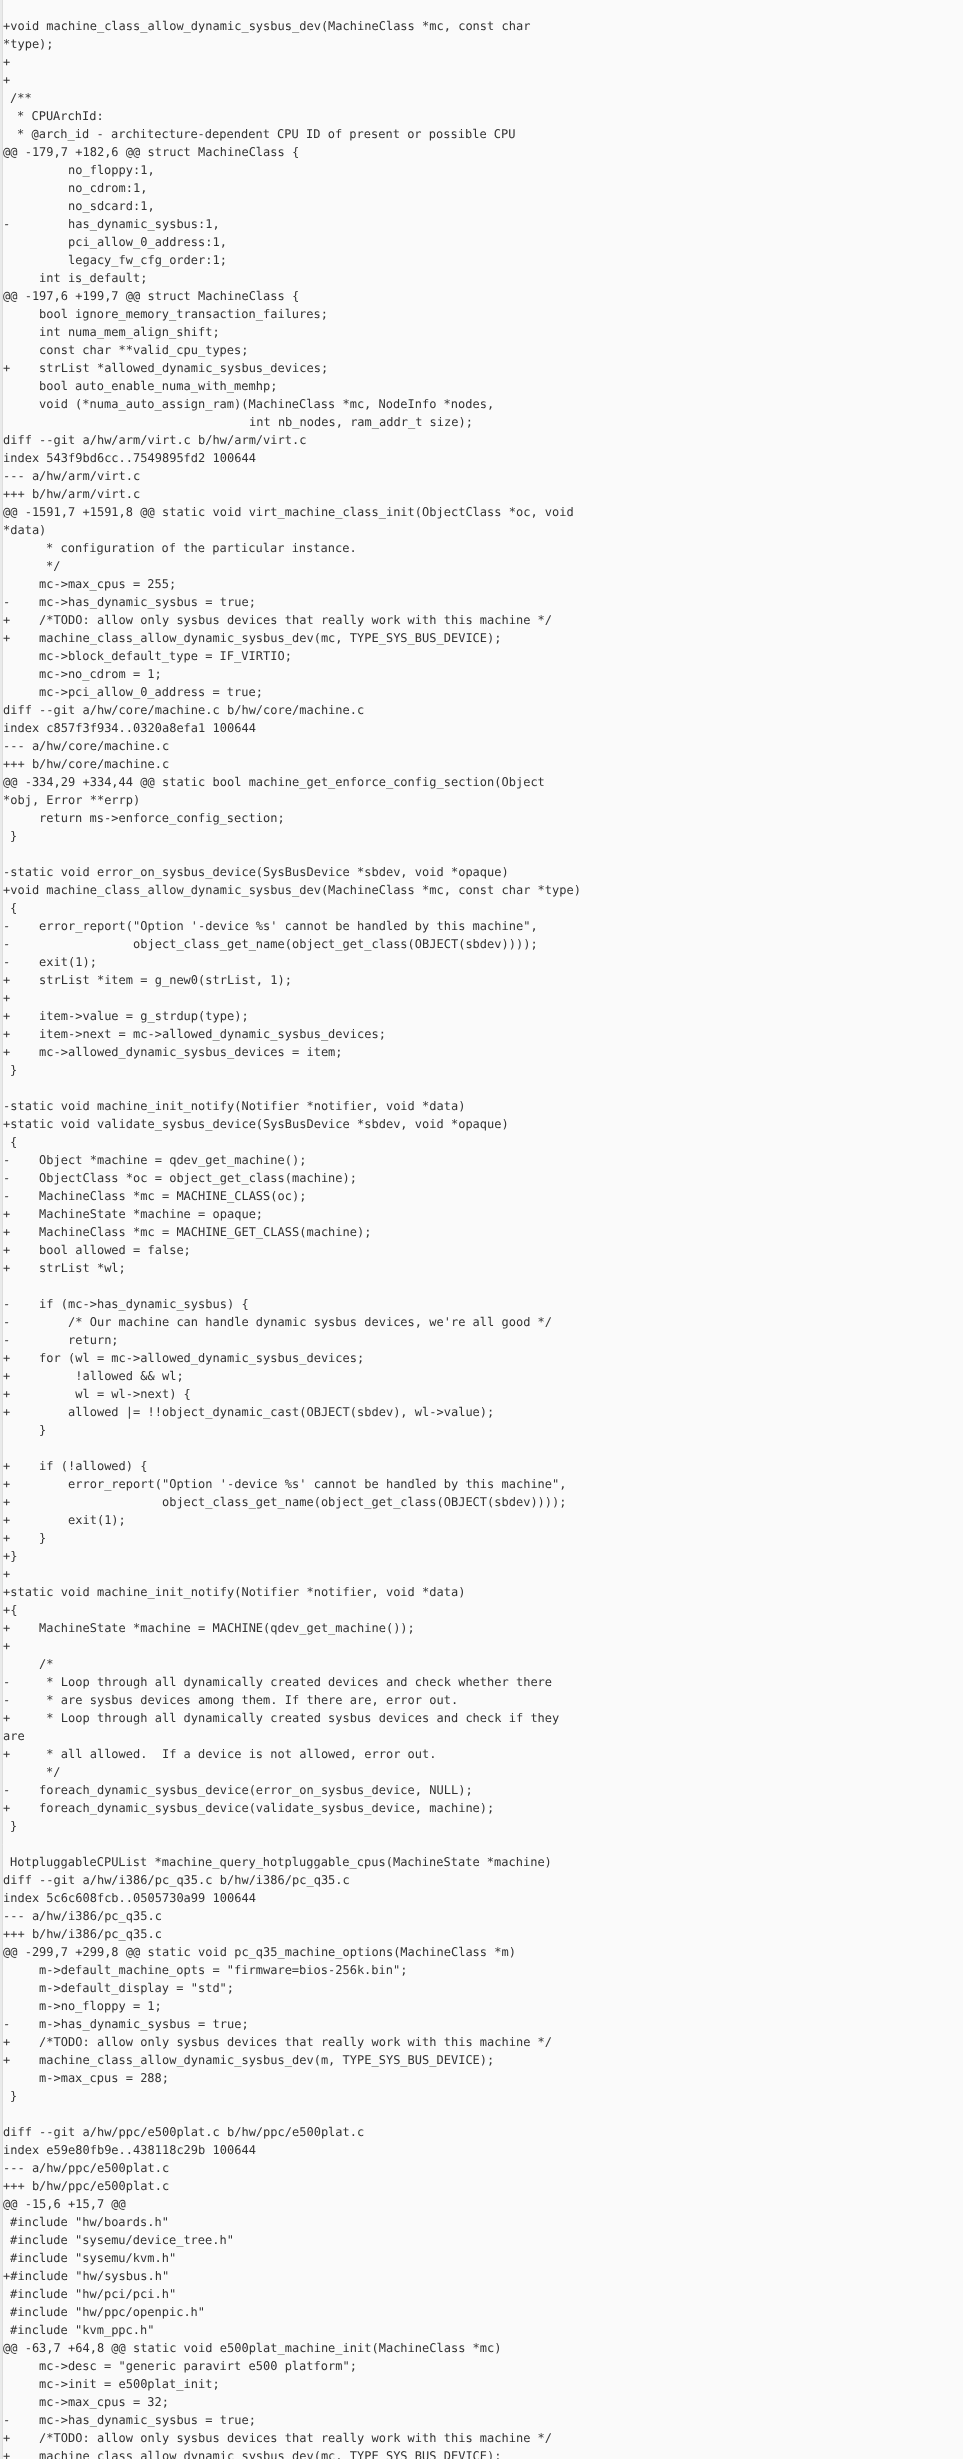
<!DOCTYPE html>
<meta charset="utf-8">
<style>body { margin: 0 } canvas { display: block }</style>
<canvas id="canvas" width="963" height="2459"></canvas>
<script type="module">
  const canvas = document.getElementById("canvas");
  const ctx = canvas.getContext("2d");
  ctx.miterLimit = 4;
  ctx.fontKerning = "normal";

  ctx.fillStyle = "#e9eaea";
  ctx.fillRect(0, 0, 963, 2459);
  ctx.fillStyle = "#fafafa";
  ctx.beginPath();
  ctx.rect(2.5, -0.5, 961, 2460);
  ctx.fill();
  ctx.strokeStyle = "#dddddd";
  ctx.stroke();
  ctx.font = "12px DejaVu Sans Mono";
  ctx.fillStyle = "#333333";
  ctx.fillText("+void machine_class_allow_dynamic_sysbus_dev(MachineClass *mc, const char", 3, 30);
  ctx.fillText("*type);", 3, 48);
  ctx.fillText("+", 3, 66);
  ctx.fillText("+", 3, 84);
  ctx.fillText("/**", 10, 102);
  ctx.fillText("* CPUArchId:", 17, 120);
  ctx.fillText("* @arch_id - architecture-dependent CPU ID of present or possible CPU", 17, 138);
  ctx.fillText("@@ -179,7 +182,6 @@ struct MachineClass {", 3, 156);
  ctx.fillText("no_floppy:1,", 68, 174);
  ctx.fillText("no_cdrom:1,", 68, 192);
  ctx.fillText("no_sdcard:1,", 68, 210);
  ctx.fillText("-        has_dynamic_sysbus:1,", 3, 228);
  ctx.fillText("pci_allow_0_address:1,", 68, 246);
  ctx.fillText("legacy_fw_cfg_order:1;", 68, 264);
  ctx.fillText("int is_default;", 39, 282);
  ctx.fillText("@@ -197,6 +199,7 @@ struct MachineClass {", 3, 300);
  ctx.fillText("bool ignore_memory_transaction_failures;", 39, 318);
  ctx.fillText("int numa_mem_align_shift;", 39, 336);
  ctx.fillText("const char **valid_cpu_types;", 39, 354);
  ctx.fillText("+    strList *allowed_dynamic_sysbus_devices;", 3, 372);
  ctx.fillText("bool auto_enable_numa_with_memhp;", 39, 390);
  ctx.fillText("void (*numa_auto_assign_ram)(MachineClass *mc, NodeInfo *nodes,", 39, 408);
  ctx.fillText("int nb_nodes, ram_addr_t size);", 249, 426);
  ctx.fillText("diff --git a/hw/arm/virt.c b/hw/arm/virt.c", 3, 444);
  ctx.fillText("index 543f9bd6cc..7549895fd2 100644", 3, 462);
  ctx.fillText("--- a/hw/arm/virt.c", 3, 480);
  ctx.fillText("+++ b/hw/arm/virt.c", 3, 498);
  ctx.fillText("@@ -1591,7 +1591,8 @@ static void virt_machine_class_init(ObjectClass *oc, void", 3, 516);
  ctx.fillText("*data)", 3, 534);
  ctx.fillText("* configuration of the particular instance.", 46, 552);
  ctx.fillText("*/", 46, 570);
  ctx.fillText("mc->max_cpus = 255;", 39, 588);
  ctx.fillText("-    mc->has_dynamic_sysbus = true;", 3, 606);
  ctx.fillText("+    /*TODO: allow only sysbus devices that really work with this machine */", 3, 624);
  ctx.fillText("+    machine_class_allow_dynamic_sysbus_dev(mc, TYPE_SYS_BUS_DEVICE);", 3, 642);
  ctx.fillText("mc->block_default_type = IF_VIRTIO;", 39, 660);
  ctx.fillText("mc->no_cdrom = 1;", 39, 678);
  ctx.fillText("mc->pci_allow_0_address = true;", 39, 696);
  ctx.fillText("diff --git a/hw/core/machine.c b/hw/core/machine.c", 3, 714);
  ctx.fillText("index c857f3f934..0320a8efa1 100644", 3, 732);
  ctx.fillText("--- a/hw/core/machine.c", 3, 750);
  ctx.fillText("+++ b/hw/core/machine.c", 3, 768);
  ctx.fillText("@@ -334,29 +334,44 @@ static bool machine_get_enforce_config_section(Object", 3, 786);
  ctx.fillText("*obj, Error **errp)", 3, 804);
  ctx.fillText("return ms->enforce_config_section;", 39, 822);
  ctx.fillText("}", 10, 840);
  ctx.fillText("-static void error_on_sysbus_device(SysBusDevice *sbdev, void *opaque)", 3, 876);
  ctx.fillText("+void machine_class_allow_dynamic_sysbus_dev(MachineClass *mc, const char *type)", 3, 894);
  ctx.fillText("{", 10, 912);
  ctx.fillText("-    error_report(\"Option '-device %s' cannot be handled by this machine\",", 3, 930);
  ctx.fillText("-                 object_class_get_name(object_get_class(OBJECT(sbdev))));", 3, 948);
  ctx.fillText("-    exit(1);", 3, 966);
  ctx.fillText("+    strList *item = g_new0(strList, 1);", 3, 984);
  ctx.fillText("+", 3, 1002);
  ctx.fillText("+    item->value = g_strdup(type);", 3, 1020);
  ctx.fillText("+    item->next = mc->allowed_dynamic_sysbus_devices;", 3, 1038);
  ctx.fillText("+    mc->allowed_dynamic_sysbus_devices = item;", 3, 1056);
  ctx.fillText("}", 10, 1074);
  ctx.fillText("-static void machine_init_notify(Notifier *notifier, void *data)", 3, 1110);
  ctx.fillText("+static void validate_sysbus_device(SysBusDevice *sbdev, void *opaque)", 3, 1128);
  ctx.fillText("{", 10, 1146);
  ctx.fillText("-    Object *machine = qdev_get_machine();", 3, 1164);
  ctx.fillText("-    ObjectClass *oc = object_get_class(machine);", 3, 1182);
  ctx.fillText("-    MachineClass *mc = MACHINE_CLASS(oc);", 3, 1200);
  ctx.fillText("+    MachineState *machine = opaque;", 3, 1218);
  ctx.fillText("+    MachineClass *mc = MACHINE_GET_CLASS(machine);", 3, 1236);
  ctx.fillText("+    bool allowed = false;", 3, 1254);
  ctx.fillText("+    strList *wl;", 3, 1272);
  ctx.fillText("-    if (mc->has_dynamic_sysbus) {", 3, 1308);
  ctx.fillText("-        /* Our machine can handle dynamic sysbus devices, we're all good */", 3, 1326);
  ctx.fillText("-        return;", 3, 1344);
  ctx.fillText("+    for (wl = mc->allowed_dynamic_sysbus_devices;", 3, 1362);
  ctx.fillText("+         !allowed && wl;", 3, 1380);
  ctx.fillText("+         wl = wl->next) {", 3, 1398);
  ctx.fillText("+        allowed |= !!object_dynamic_cast(OBJECT(sbdev), wl->value);", 3, 1416);
  ctx.fillText("}", 39, 1434);
  ctx.fillText("+    if (!allowed) {", 3, 1470);
  ctx.fillText("+        error_report(\"Option '-device %s' cannot be handled by this machine\",", 3, 1488);
  ctx.fillText("+                     object_class_get_name(object_get_class(OBJECT(sbdev))));", 3, 1506);
  ctx.fillText("+        exit(1);", 3, 1524);
  ctx.fillText("+    }", 3, 1542);
  ctx.fillText("+}", 3, 1560);
  ctx.fillText("+", 3, 1578);
  ctx.fillText("+static void machine_init_notify(Notifier *notifier, void *data)", 3, 1596);
  ctx.fillText("+{", 3, 1614);
  ctx.fillText("+    MachineState *machine = MACHINE(qdev_get_machine());", 3, 1632);
  ctx.fillText("+", 3, 1650);
  ctx.fillText("/*", 39, 1668);
  ctx.fillText("-     * Loop through all dynamically created devices and check whether there", 3, 1686);
  ctx.fillText("-     * are sysbus devices among them. If there are, error out.", 3, 1704);
  ctx.fillText("+     * Loop through all dynamically created sysbus devices and check if they", 3, 1722);
  ctx.fillText("are", 3, 1740);
  ctx.fillText("+     * all allowed.  If a device is not allowed, error out.", 3, 1758);
  ctx.fillText("*/", 46, 1776);
  ctx.fillText("-    foreach_dynamic_sysbus_device(error_on_sysbus_device, NULL);", 3, 1794);
  ctx.fillText("+    foreach_dynamic_sysbus_device(validate_sysbus_device, machine);", 3, 1812);
  ctx.fillText("}", 10, 1830);
  ctx.fillText("HotpluggableCPUList *machine_query_hotpluggable_cpus(MachineState *machine)", 10, 1866);
  ctx.fillText("diff --git a/hw/i386/pc_q35.c b/hw/i386/pc_q35.c", 3, 1884);
  ctx.fillText("index 5c6c608fcb..0505730a99 100644", 3, 1902);
  ctx.fillText("--- a/hw/i386/pc_q35.c", 3, 1920);
  ctx.fillText("+++ b/hw/i386/pc_q35.c", 3, 1938);
  ctx.fillText("@@ -299,7 +299,8 @@ static void pc_q35_machine_options(MachineClass *m)", 3, 1956);
  ctx.fillText("m->default_machine_opts = \"firmware=bios-256k.bin\";", 39, 1974);
  ctx.fillText("m->default_display = \"std\";", 39, 1992);
  ctx.fillText("m->no_floppy = 1;", 39, 2010);
  ctx.fillText("-    m->has_dynamic_sysbus = true;", 3, 2028);
  ctx.fillText("+    /*TODO: allow only sysbus devices that really work with this machine */", 3, 2046);
  ctx.fillText("+    machine_class_allow_dynamic_sysbus_dev(m, TYPE_SYS_BUS_DEVICE);", 3, 2064);
  ctx.fillText("m->max_cpus = 288;", 39, 2082);
  ctx.fillText("}", 10, 2100);
  ctx.fillText("diff --git a/hw/ppc/e500plat.c b/hw/ppc/e500plat.c", 3, 2136);
  ctx.fillText("index e59e80fb9e..438118c29b 100644", 3, 2154);
  ctx.fillText("--- a/hw/ppc/e500plat.c", 3, 2172);
  ctx.fillText("+++ b/hw/ppc/e500plat.c", 3, 2190);
  ctx.fillText("@@ -15,6 +15,7 @@", 3, 2208);
  ctx.fillText("#include \"hw/boards.h\"", 10, 2226);
  ctx.fillText("#include \"sysemu/device_tree.h\"", 10, 2244);
  ctx.fillText("#include \"sysemu/kvm.h\"", 10, 2262);
  ctx.fillText("+#include \"hw/sysbus.h\"", 3, 2280);
  ctx.fillText("#include \"hw/pci/pci.h\"", 10, 2298);
  ctx.fillText("#include \"hw/ppc/openpic.h\"", 10, 2316);
  ctx.fillText("#include \"kvm_ppc.h\"", 10, 2334);
  ctx.fillText("@@ -63,7 +64,8 @@ static void e500plat_machine_init(MachineClass *mc)", 3, 2352);
  ctx.fillText("mc->desc = \"generic paravirt e500 platform\";", 39, 2370);
  ctx.fillText("mc->init = e500plat_init;", 39, 2388);
  ctx.fillText("mc->max_cpus = 32;", 39, 2406);
  ctx.fillText("-    mc->has_dynamic_sysbus = true;", 3, 2424);
  ctx.fillText("+    /*TODO: allow only sysbus devices that really work with this machine */", 3, 2442);
  ctx.fillText("+    machine_class_allow_dynamic_sysbus_dev(mc, TYPE_SYS_BUS_DEVICE);", 3, 2460);
</script>
